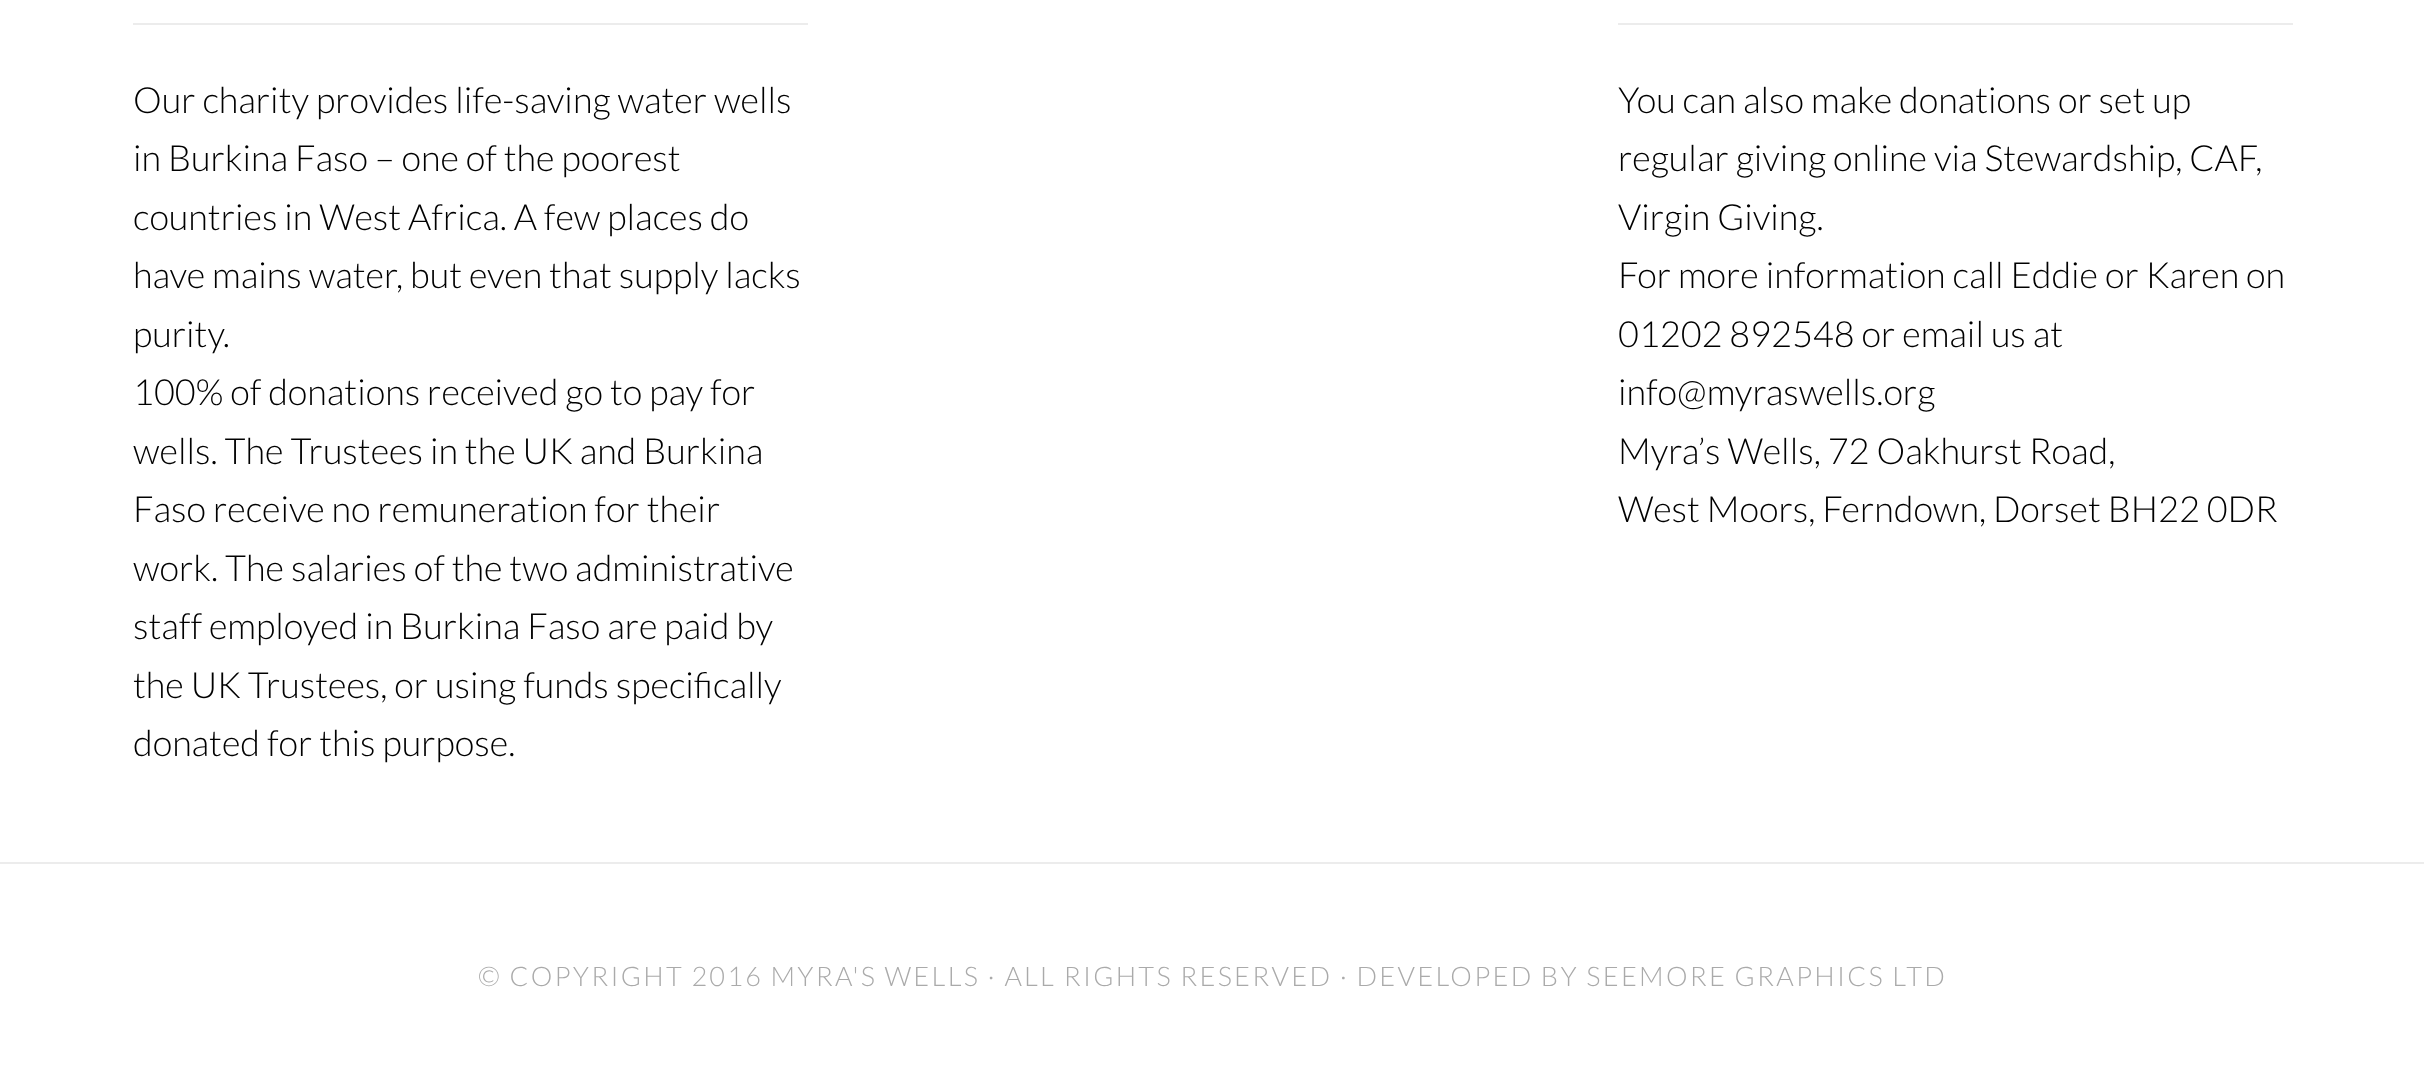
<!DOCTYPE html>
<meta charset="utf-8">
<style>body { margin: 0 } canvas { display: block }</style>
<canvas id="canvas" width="2424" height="1088"></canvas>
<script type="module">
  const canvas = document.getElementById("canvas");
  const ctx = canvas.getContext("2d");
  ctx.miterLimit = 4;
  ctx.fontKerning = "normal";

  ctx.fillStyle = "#ffffff";
  ctx.fillRect(0, 0, 2424, 1088);
  ctx.fillStyle = "#ececec";
  ctx.fillRect(133, 23, 675, 2);
  ctx.font = "300 36px Lato";
  ctx.fillStyle = "#000000";
  ctx.fillText("Our charity provides life-saving water wells", 133, 113);
  ctx.fillText("in Burkina Faso – one of the poorest", 133, 171);
  ctx.fillText("countries in West Africa. A few places do", 133, 230);
  ctx.fillText("have mains water, but even that supply lacks", 133, 288);
  ctx.fillText("purity.", 133, 347);
  ctx.fillText("100% of donations received go to pay for", 133, 405);
  ctx.fillText("wells. The Trustees in the UK and Burkina", 133, 464);
  ctx.fillText("Faso receive no remuneration for their", 133, 522);
  ctx.fillText("work. The salaries of the two administrative", 133, 581);
  ctx.fillText("staff employed in Burkina Faso are paid by", 133, 639);
  ctx.fillText("the UK Trustees, or using funds specifically", 133, 698);
  ctx.fillText("donated for this purpose.", 133, 756);
  ctx.fillStyle = "#ececec";
  ctx.fillRect(1618, 23, 675, 2);
  ctx.fillStyle = "#000000";
  ctx.fillText("You can also make donations or set up", 1618, 113);
  ctx.fillText("regular giving online via Stewardship, CAF,", 1618, 171);
  ctx.fillText("Virgin Giving.", 1618, 230);
  ctx.fillText("For more information call Eddie or Karen on", 1618, 288);
  ctx.fillText("01202 892548 or email us at", 1618, 347);
  ctx.fillText("info@myraswells.org", 1618, 405);
  ctx.fillText("Myra’s Wells, 72 Oakhurst Road,", 1618, 464);
  ctx.fillText("West Moors, Ferndown, Dorset BH22 0DR", 1618, 522);
  ctx.fillStyle = "#ececec";
  ctx.fillRect(0, 862, 2424, 2);
  ctx.letterSpacing = "2.25px";
  ctx.font = "300 27px Lato";
  ctx.fillStyle = "#aaaaaa";
  ctx.fillText("© COPYRIGHT 2016 MYRA'S WELLS · ALL RIGHTS RESERVED · DEVELOPED BY SEEMORE GRAPHICS LTD", 478, 986);
</script>
